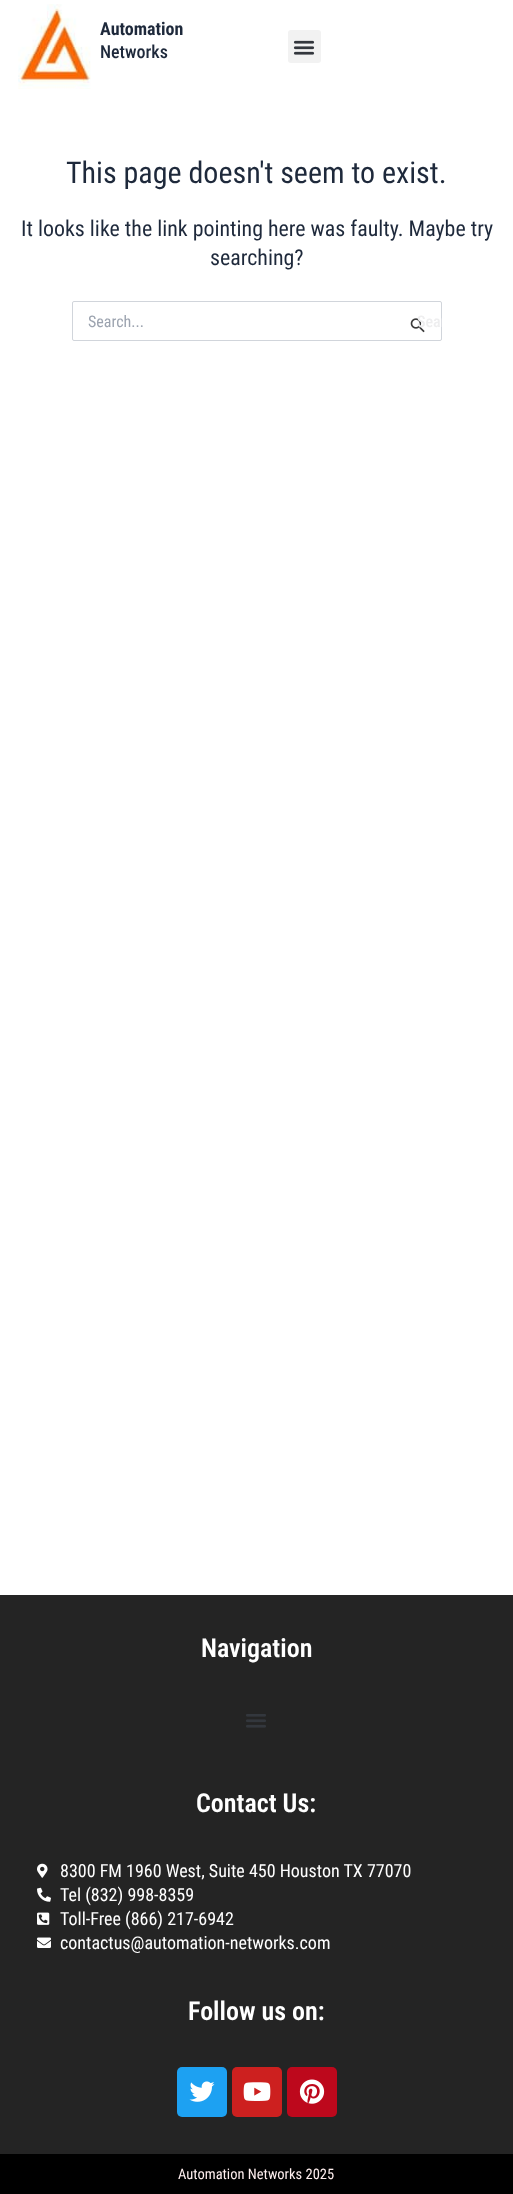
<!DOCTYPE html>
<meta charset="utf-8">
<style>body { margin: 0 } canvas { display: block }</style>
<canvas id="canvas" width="513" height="2194"></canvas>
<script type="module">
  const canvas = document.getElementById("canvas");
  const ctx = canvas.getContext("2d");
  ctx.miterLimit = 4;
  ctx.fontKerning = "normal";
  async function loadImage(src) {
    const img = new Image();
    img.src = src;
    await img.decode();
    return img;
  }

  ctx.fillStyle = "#ffffff";
  ctx.fillRect(0, 0, 513, 2194);
  ctx.drawImage(await loadImage("img1.png"), 18, 4, 73, 85);
  ctx.font = "bold 18px Roboto Condensed";
  ctx.fillStyle = "#1e293b";
  ctx.fillText("Automation", 100, 35);
  ctx.font = "500 18px Roboto Condensed";
  ctx.fillText("Networks", 100, 58);
  ctx.fillStyle = "#f2f2f2";
  ctx.beginPath();
  ctx.roundRect(288, 30, 33, 33, 3);
  ctx.fill();
  ctx.drawImage(await loadImage("img2.png"), 293, 40, 22, 15);
  ctx.font = "30px Roboto Condensed";
  ctx.fillStyle = "#1e293b";
  ctx.fillText("This page doesn't seem to exist.", 66, 183);
  ctx.font = "21.9px Roboto Condensed";
  ctx.fillText("It looks like the link pointing here was faulty. Maybe try", 21, 236);
  ctx.fillText("searching?", 210, 265);
  ctx.beginPath();
  ctx.roundRect(72.5, 301.5, 369, 39, 1.5);
  ctx.strokeStyle = "#d1d5db";
  ctx.stroke();
  ctx.font = "16px Roboto Condensed";
  ctx.fillStyle = "#9ca3af";
  ctx.fillText("Search...", 88, 327);
  ctx.drawImage(await loadImage("img3.png"), 410, 318, 15, 15);
  ctx.save();
  ctx.beginPath();
  ctx.roundRect(397, 301, 45, 42, 2);
  ctx.clip();
  ctx.font = "500 16px Roboto Condensed";
  ctx.fillStyle = "#eeeeef";
  ctx.fillText("Sear", 417, 327);
  ctx.restore();
  ctx.fillStyle = "#242424";
  ctx.fillRect(0, 1595, 513, 559);
  ctx.font = "600 26px Roboto Condensed";
  ctx.fillStyle = "#ffffff";
  ctx.fillText("Navigation", 201, 1657);
  ctx.drawImage(await loadImage("img4.png"), 246, 1714, 20, 14);
  ctx.fillText("Contact Us:", 196, 1812);
  ctx.drawImage(await loadImage("img5.png"), 37, 1863, 11, 15);
  ctx.font = "18px Roboto Condensed";
  ctx.fillText("8300 FM 1960 West, Suite 450 Houston TX 77070", 60, 1877);
  ctx.drawImage(await loadImage("img6.png"), 37, 1887, 14, 15);
  ctx.fillText("Tel (832) 998-8359", 60, 1901);
  ctx.drawImage(await loadImage("img7.png"), 37, 1912, 13, 13);
  ctx.fillText("Toll-Free (866) 217-6942", 60, 1925);
  ctx.drawImage(await loadImage("img8.png"), 37, 1937, 14, 11);
  ctx.fillText("contactus@automation-networks.com", 60, 1949);
  ctx.font = "600 26px Roboto Condensed";
  ctx.fillText("Follow us on:", 188, 2020);
  ctx.fillStyle = "#1da1f2";
  ctx.beginPath();
  ctx.roundRect(177, 2067, 50, 50, 5);
  ctx.fill();
  ctx.drawImage(await loadImage("img9.png"), 189, 2081, 26, 21);
  ctx.fillStyle = "#cd201f";
  ctx.beginPath();
  ctx.roundRect(232, 2067, 50, 50, 5);
  ctx.fill();
  ctx.drawImage(await loadImage("img10.png"), 243, 2082, 28, 19);
  ctx.fillStyle = "#bd081c";
  ctx.beginPath();
  ctx.roundRect(287, 2067, 50, 50, 5);
  ctx.fill();
  ctx.drawImage(await loadImage("img11.png"), 299, 2079, 26, 25);
  ctx.fillStyle = "#000000";
  ctx.fillRect(0, 2154, 513, 40);
  ctx.font = "14.5px Roboto Condensed";
  ctx.fillStyle = "#ffefef";
  ctx.fillText("Automation Networks 2025", 178, 2179);
</script>
